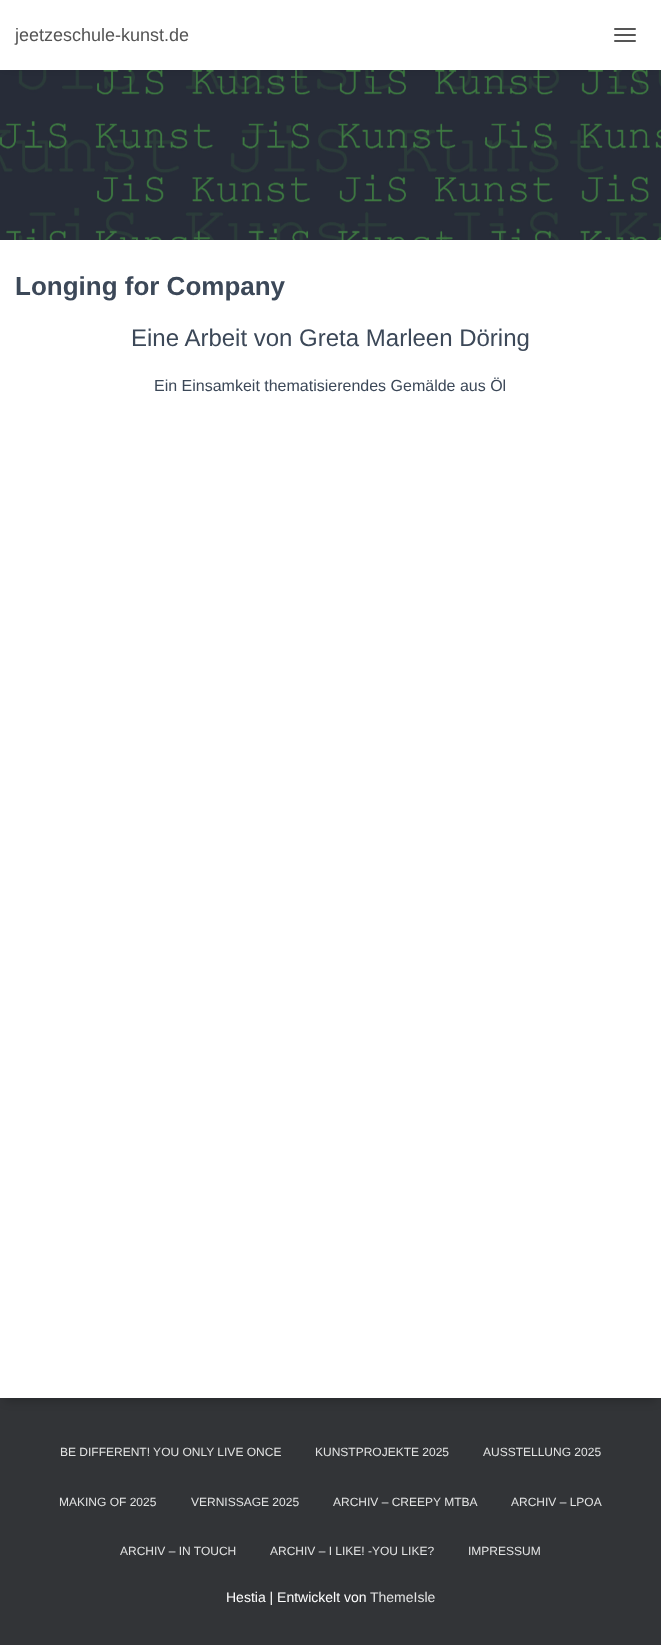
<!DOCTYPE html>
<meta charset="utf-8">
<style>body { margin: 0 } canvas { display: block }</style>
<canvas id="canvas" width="661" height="1645"></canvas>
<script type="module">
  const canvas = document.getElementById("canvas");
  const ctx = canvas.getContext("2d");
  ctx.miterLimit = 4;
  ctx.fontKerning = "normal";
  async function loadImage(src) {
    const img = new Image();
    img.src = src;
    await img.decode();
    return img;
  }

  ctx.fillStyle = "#323437";
  ctx.fillRect(0, 0, 661, 1645);
  ctx.drawImage(await loadImage("img1.png"), 0, 70, 661, 170);
  ctx.fillStyle = "rgba(0, 0, 0, 0.42)";
  ctx.filter = "blur(5px)";
  ctx.beginPath();
  ctx.rect(6, 7, 649, 58);
  ctx.fill();
  ctx.filter = "none";
  ctx.fillStyle = "#ffffff";
  ctx.fillRect(0, 0, 661, 70);
  ctx.font = "18px Liberation Sans";
  ctx.fillStyle = "#555555";
  ctx.fillText("jeetzeschule-kunst.de", 15, 41);
  ctx.beginPath();
  ctx.roundRect(614, 28, 22, 2, 1);
  ctx.fill();
  ctx.beginPath();
  ctx.roundRect(614, 34, 22, 2, 1);
  ctx.fill();
  ctx.beginPath();
  ctx.roundRect(614, 40, 22, 2, 1);
  ctx.fill();
  ctx.fillStyle = "rgba(0, 0, 0, 0.2)";
  ctx.filter = "blur(5px)";
  ctx.beginPath();
  ctx.rect(5, 253, 651, 1148);
  ctx.fill();
  ctx.filter = "none";
  ctx.fillStyle = "#ffffff";
  ctx.fillRect(0, 240, 661, 1158);
  ctx.font = "bold 26px Liberation Sans";
  ctx.fillStyle = "#3c4858";
  ctx.fillText("Longing for Company", 15, 295);
  ctx.font = "24px Liberation Sans";
  ctx.fillText("Eine Arbeit von Greta Marleen Döring", 131, 346);
  ctx.font = "16px Liberation Sans";
  ctx.fillText("Ein Einsamkeit thematisierendes Gemälde aus Öl", 154, 391);
  ctx.font = "12px Liberation Sans";
  ctx.fillStyle = "#e2e3e3";
  ctx.fillText("BE DIFFERENT! YOU ONLY LIVE ONCE", 60, 1456);
  ctx.fillText("KUNSTPROJEKTE 2025", 315, 1456);
  ctx.fillText("AUSSTELLUNG 2025", 483, 1456);
  ctx.fillText("MAKING OF 2025", 59, 1506);
  ctx.fillText("VERNISSAGE 2025", 191, 1506);
  ctx.fillText("ARCHIV – CREEPY MTBA", 333, 1506);
  ctx.fillText("ARCHIV – LPOA", 511, 1506);
  ctx.fillText("ARCHIV – IN TOUCH", 120, 1555);
  ctx.fillText("ARCHIV – I LIKE! -YOU LIKE?", 270, 1555);
  ctx.fillText("IMPRESSUM", 468, 1555);
  ctx.font = "14px Liberation Sans";
  ctx.fillStyle = "#ffffff";
  ctx.fillText("Hestia | Entwickelt von", 226, 1602);
  ctx.fillStyle = "#e2e3e3";
  ctx.fillText("ThemeIsle", 370, 1602);
</script>
